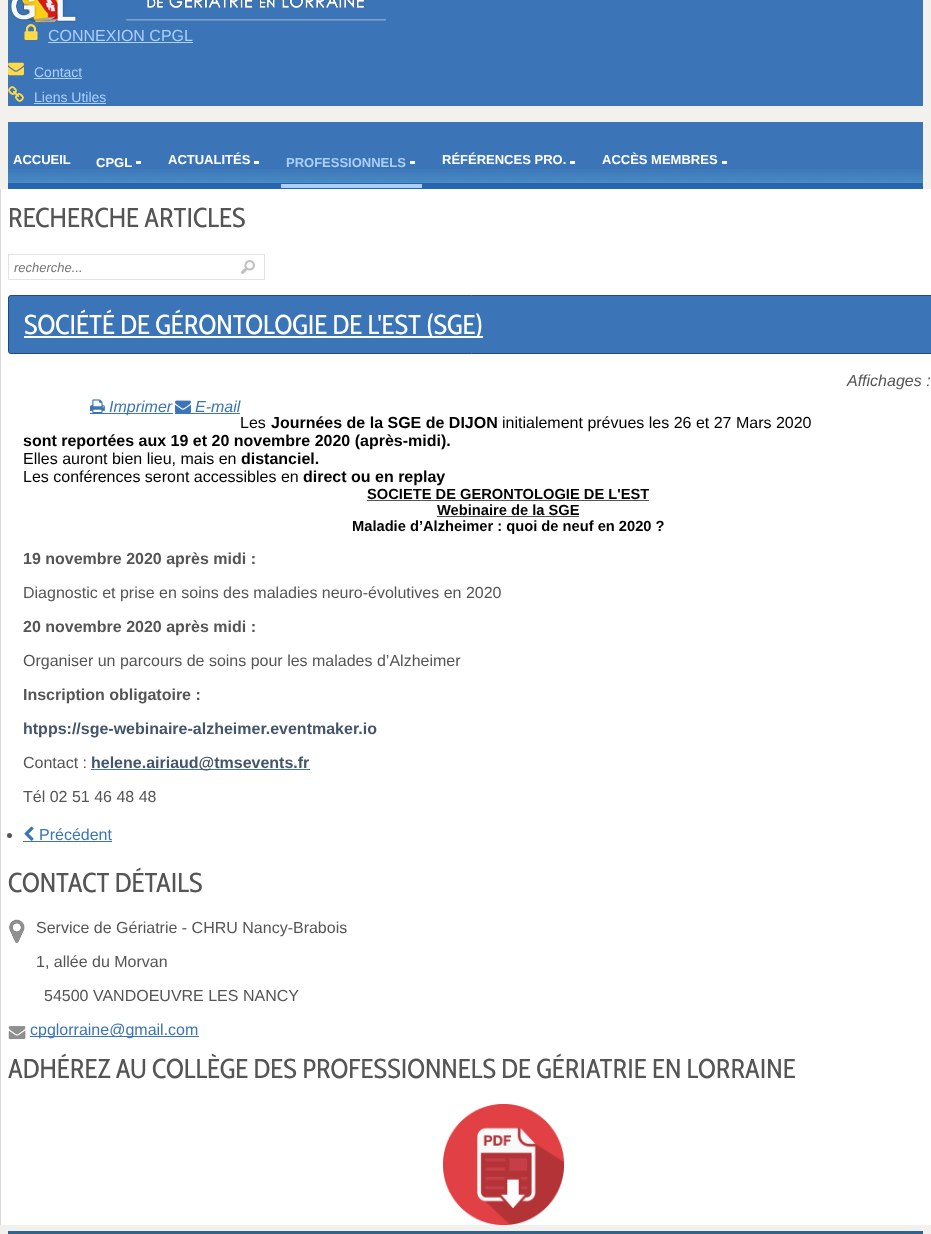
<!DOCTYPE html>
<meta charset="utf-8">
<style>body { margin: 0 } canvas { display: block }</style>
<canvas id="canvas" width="931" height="1234"></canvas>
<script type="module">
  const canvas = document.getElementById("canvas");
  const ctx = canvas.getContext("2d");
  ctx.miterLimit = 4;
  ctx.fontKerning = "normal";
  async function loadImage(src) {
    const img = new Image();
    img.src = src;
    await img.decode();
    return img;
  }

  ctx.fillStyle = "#f3f1ee";
  ctx.fillRect(0, 0, 931, 1234);
  ctx.fillStyle = "#3b74b7";
  ctx.fillRect(8, 0, 915, 106);
  ctx.drawImage(await loadImage("img1.png"), 10, 0, 376, 23);
  ctx.drawImage(await loadImage("img2.png"), 24, 24, 14, 16);
  ctx.font = "16px Liberation Sans";
  ctx.fillStyle = "#abd0fc";
  ctx.fillText("CONNEXION CPGL", 48, 41);
  ctx.fillRect(48, 42, 145, 1);
  ctx.drawImage(await loadImage("img3.png"), 8, 62, 16, 14);
  ctx.font = "14px Liberation Sans";
  ctx.fillText("Contact", 34, 77);
  ctx.fillRect(34, 78, 48, 1);
  ctx.drawImage(await loadImage("img4.png"), 8, 86, 16, 16);
  ctx.fillText("Liens Utiles", 34, 102);
  ctx.fillRect(34, 103, 72, 1);
  ctx.fillStyle = "#3b74b7";
  ctx.fillRect(8, 122, 915, 67);
  ctx.drawImage(await loadImage("img5.png"), 8, 169, 915, 20);
  ctx.font = "bold 13px Liberation Sans";
  ctx.fillStyle = "#ffffff";
  ctx.fillText("ACCUEIL", 13, 164);
  ctx.fillText("CPGL", 96, 167);
  ctx.fillRect(136, 161, 5, 3);
  ctx.fillText("ACTUALITÉS", 168, 164);
  ctx.fillRect(254, 161, 5, 3);
  ctx.fillStyle = "#abd0fc";
  ctx.fillRect(281, 184, 141, 4);
  ctx.fillText("PROFESSIONNELS", 286, 167);
  ctx.fillStyle = "#ffffff";
  ctx.fillRect(410, 161, 5, 3);
  ctx.fillText("RÉFÉRENCES PRO.", 442, 164);
  ctx.fillRect(570, 161, 5, 3);
  ctx.fillText("ACCÈS MEMBRES", 602, 164);
  ctx.fillRect(722, 161, 5, 3);
  ctx.fillRect(1, 189, 930, 1036);
  ctx.fillStyle = "#dbd9d6";
  ctx.fillRect(0, 189, 1, 1036);
  ctx.font = "27.2px Cabin Condensed";
  ctx.fillStyle = "#555555";
  ctx.fillText("RECHERCHE ARTICLES", 8, 227);
  ctx.drawImage(await loadImage("img6.png"), 241, 260, 14, 14);
  ctx.strokeStyle = "#e3e3e3";
  ctx.strokeRect(8.5, 254.5, 256, 25);
  ctx.font = "italic 13px Liberation Sans";
  ctx.fillStyle = "#757575";
  ctx.fillText("recherche...", 14, 272);
  ctx.fillStyle = "#3b74b7";
  ctx.beginPath();
  ctx.roundRect(8.5, 295.5, 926, 58, 2.5);
  ctx.fill();
  ctx.strokeStyle = "#1a4d86";
  ctx.stroke();
  ctx.fillStyle = "#ffffff";
  ctx.fillRect(24, 336, 459, 2);
  ctx.font = "27.2px Cabin Condensed";
  ctx.fillText("SOCIÉTÉ DE GÉRONTOLOGIE DE L'EST (SGE)", 24, 334);
  ctx.font = "italic 16px Liberation Sans";
  ctx.fillStyle = "#555555";
  ctx.fillText("Affichages :", 847, 386);
  ctx.fillStyle = "#3b74b7";
  ctx.fillRect(90, 413, 83, 1);
  ctx.drawImage(await loadImage("img7.png"), 90, 399, 15, 14);
  ctx.fillText("Imprimer", 109, 412);
  ctx.fillRect(175, 413, 65, 1);
  ctx.drawImage(await loadImage("img8.png"), 175, 400, 16, 13);
  ctx.fillText("E-mail", 195, 412);
  ctx.font = "16px Liberation Sans";
  ctx.fillStyle = "#000000";
  ctx.fillText("Les", 240, 428);
  ctx.font = "bold 16px Liberation Sans";
  ctx.fillText("Journées de la SGE de DIJON", 271, 428);
  ctx.font = "16px Liberation Sans";
  ctx.fillText("initialement prévues les 26 et 27 Mars 2020", 502, 428);
  ctx.font = "bold 16px Liberation Sans";
  ctx.fillText("sont reportées aux 19 et 20 novembre 2020 (après-midi).", 23, 446);
  ctx.font = "16px Liberation Sans";
  ctx.fillText("Elles auront bien lieu, mais en", 23, 464);
  ctx.font = "bold 16px Liberation Sans";
  ctx.fillText("distanciel.", 241, 464);
  ctx.font = "16px Liberation Sans";
  ctx.fillText("Les conférences seront accessibles en", 23, 482);
  ctx.font = "bold 16px Liberation Sans";
  ctx.fillText("direct ou en replay", 303, 482);
  ctx.font = "bold 14.7px Liberation Sans";
  ctx.fillText("SOCIETE DE GERONTOLOGIE DE L'EST", 367, 499);
  ctx.fillStyle = "#555555";
  ctx.fillRect(367, 500, 282, 1);
  ctx.fillStyle = "#000000";
  ctx.fillText("Webinaire de la SGE", 437, 515);
  ctx.fillStyle = "#555555";
  ctx.fillRect(437, 516, 142, 1);
  ctx.fillStyle = "#000000";
  ctx.fillText("Maladie d’Alzheimer : quoi de neuf en 2020 ?", 352, 531);
  ctx.font = "bold 16px Liberation Sans";
  ctx.fillStyle = "#555555";
  ctx.fillText("19 novembre 2020 après midi :", 23, 564);
  ctx.font = "16px Liberation Sans";
  ctx.fillText("Diagnostic et prise en soins des maladies neuro-évolutives en 2020", 23, 598);
  ctx.font = "bold 16px Liberation Sans";
  ctx.fillText("20 novembre 2020 après midi :", 23, 632);
  ctx.font = "16px Liberation Sans";
  ctx.fillText("Organiser un parcours de soins pour les malades d’Alzheimer", 23, 666);
  ctx.font = "bold 16px Liberation Sans";
  ctx.fillText("Inscription obligatoire :", 23, 700);
  ctx.fillStyle = "#44546a";
  ctx.fillText("htpps://sge-webinaire-alzheimer.eventmaker.io", 23, 734);
  ctx.font = "16px Liberation Sans";
  ctx.fillStyle = "#555555";
  ctx.fillText("Contact :", 23, 768);
  ctx.fillStyle = "#3b74b7";
  ctx.fillRect(91, 769, 219, 1);
  ctx.font = "bold 16px Liberation Sans";
  ctx.fillStyle = "#44546a";
  ctx.fillText("helene.airiaud@tmsevents.fr", 91, 768);
  ctx.font = "16px Liberation Sans";
  ctx.fillStyle = "#555555";
  ctx.fillText("Tél 02 51 46 48 48", 23, 802);
  ctx.beginPath();
  ctx.arc(9.5, 835.5, 2.5, 0, Math.PI * 2);
  ctx.fill();
  ctx.fillStyle = "#3b74b7";
  ctx.fillRect(23, 841, 89, 1);
  ctx.drawImage(await loadImage("img9.png"), 24, 826, 10, 15);
  ctx.fillText("Précédent", 39, 840);
  ctx.font = "27.2px Cabin Condensed";
  ctx.fillStyle = "#555555";
  ctx.fillText("CONTACT DÉTAILS", 8, 892);
  ctx.drawImage(await loadImage("img10.png"), 9, 919, 16, 24);
  ctx.font = "16px Liberation Sans";
  ctx.fillText("Service de Gériatrie - CHRU Nancy-Brabois", 36, 933);
  ctx.fillText("1, allée du Morvan", 36, 967);
  ctx.fillText("54500 VANDOEUVRE LES NANCY", 44, 1001);
  ctx.drawImage(await loadImage("img11.png"), 8, 1026, 18, 14);
  ctx.fillStyle = "#3b74b7";
  ctx.fillRect(30, 1036, 169, 1);
  ctx.fillText("cpglorraine@gmail.com", 30, 1035);
  ctx.font = "27.2px Cabin Condensed";
  ctx.fillStyle = "#555555";
  ctx.fillText("ADHÉREZ AU COLLÈGE DES PROFESSIONNELS DE GÉRIATRIE EN LORRAINE", 8, 1078);
  ctx.drawImage(await loadImage("img12.png"), 443, 1104, 121, 121);
  ctx.fillStyle = "#33638b";
  ctx.fillRect(8, 1231, 915, 3);
</script>
